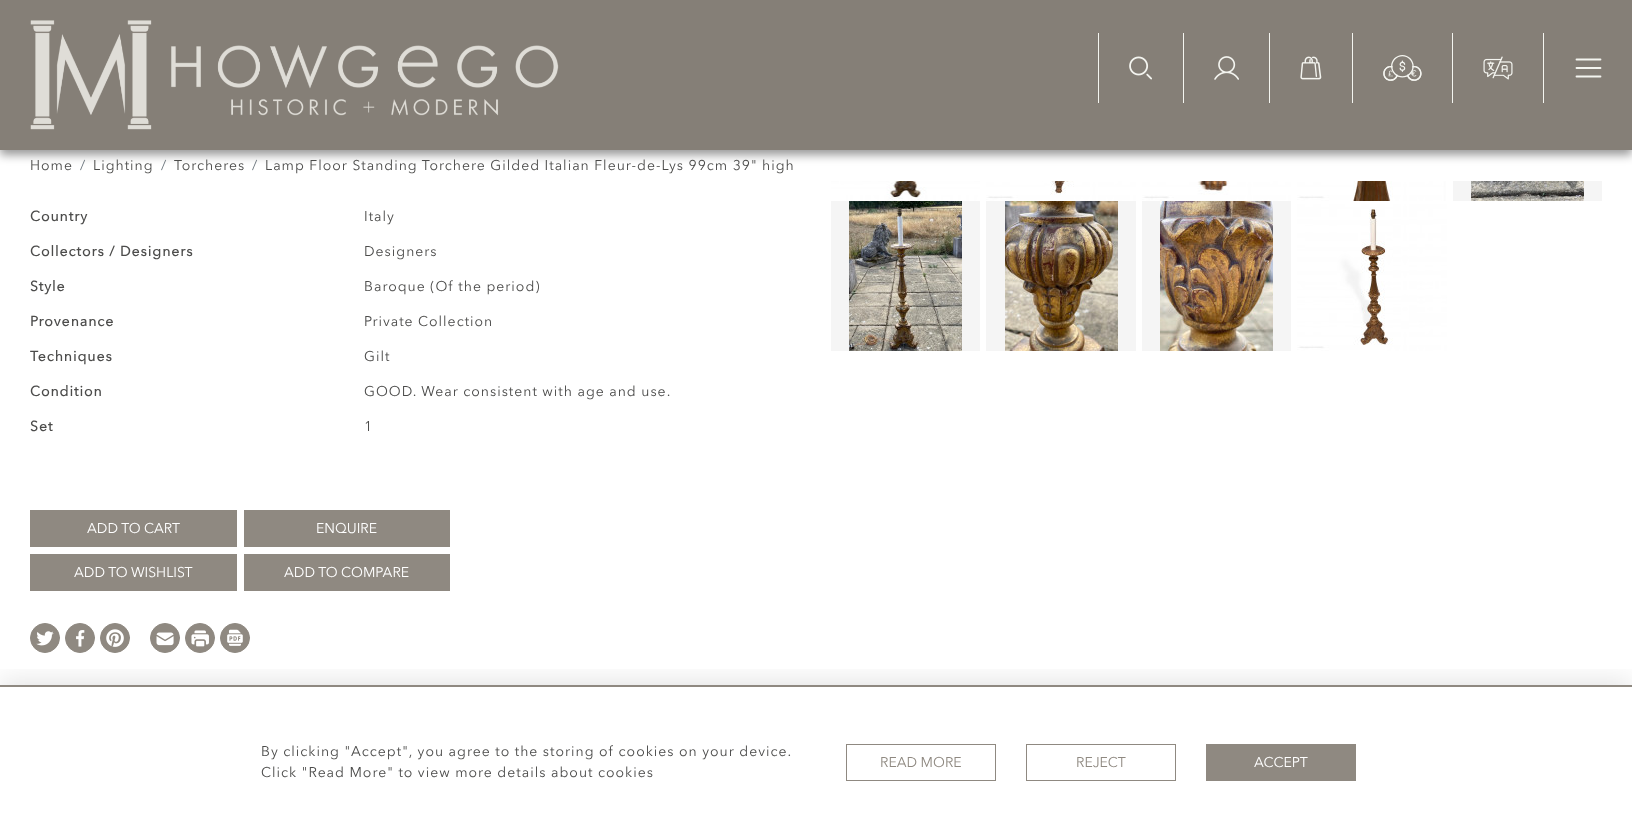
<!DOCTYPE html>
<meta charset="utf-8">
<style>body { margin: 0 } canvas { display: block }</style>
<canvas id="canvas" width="1632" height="837"></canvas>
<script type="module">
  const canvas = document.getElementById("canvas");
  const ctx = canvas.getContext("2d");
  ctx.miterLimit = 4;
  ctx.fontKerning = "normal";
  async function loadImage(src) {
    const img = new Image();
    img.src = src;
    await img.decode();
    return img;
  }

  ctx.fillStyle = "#ffffff";
  ctx.fillRect(0, 0, 1632, 837);
  ctx.fillStyle = "rgba(0, 0, 0, 0.4)";
  ctx.filter = "blur(5px)";
  ctx.beginPath();
  ctx.rect(0, 5, 1632, 150);
  ctx.fill();
  ctx.filter = "none";
  ctx.fillStyle = "#857f77";
  ctx.fillRect(0, 0, 1632, 150);
  ctx.drawImage(await loadImage("img1.png"), 30, 20, 529, 110);
  ctx.fillStyle = "#f4f5f0";
  ctx.fillRect(1098, 33, 1, 70);
  ctx.drawImage(await loadImage("img2.png"), 1129, 56, 23, 24);
  ctx.fillRect(1183, 33, 1, 70);
  ctx.drawImage(await loadImage("img3.png"), 1214, 56, 25, 24);
  ctx.fillRect(1269, 33, 1, 70);
  ctx.drawImage(await loadImage("img4.png"), 1300, 56, 22, 24);
  ctx.fillRect(1352, 33, 1, 70);
  ctx.drawImage(await loadImage("img5.png"), 1383, 55, 39, 26);
  ctx.fillRect(1452, 33, 1, 70);
  ctx.drawImage(await loadImage("img6.png"), 1483, 56, 30, 24);
  ctx.fillRect(1543, 33, 1, 70);
  ctx.beginPath();
  ctx.moveTo(1576.5, 59.5);
  ctx.lineTo(1600.5, 59.5);
  ctx.moveTo(1576.5, 68);
  ctx.lineTo(1600.5, 68);
  ctx.moveTo(1576.5, 76.5);
  ctx.lineTo(1600.5, 76.5);
  ctx.strokeStyle = "#f4f5f0";
  ctx.lineWidth = 1.8;
  ctx.lineCap = "round";
  ctx.stroke();
  ctx.letterSpacing = "1px";
  ctx.font = "14px Avenir Next";
  ctx.fillStyle = "#4c4c4b";
  ctx.fillText("Home", 30, 170);
  ctx.fillStyle = "#6c757d";
  ctx.fillText("/", 80, 170);
  ctx.fillStyle = "#4c4c4b";
  ctx.fillText("Lighting", 93, 170);
  ctx.fillStyle = "#6c757d";
  ctx.fillText("/", 161, 170);
  ctx.fillStyle = "#4c4c4b";
  ctx.fillText("Torcheres", 174, 170);
  ctx.fillStyle = "#6c757d";
  ctx.fillText("/", 252, 170);
  ctx.fillStyle = "#4c4c4b";
  ctx.fillText("Lamp Floor Standing Torchere Gilded Italian Fleur-de-Lys 99cm 39\" high", 265, 170);
  ctx.font = "bold 14px Avenir Next";
  ctx.fillText("Country", 30, 221);
  ctx.font = "14px Avenir Next";
  ctx.fillText("Italy", 364, 221);
  ctx.font = "bold 14px Avenir Next";
  ctx.fillText("Collectors / Designers", 30, 256);
  ctx.font = "14px Avenir Next";
  ctx.fillText("Designers", 364, 256);
  ctx.font = "bold 14px Avenir Next";
  ctx.fillText("Style", 30, 291);
  ctx.font = "14px Avenir Next";
  ctx.fillText("Baroque (Of the period)", 364, 291);
  ctx.font = "bold 14px Avenir Next";
  ctx.fillText("Provenance", 30, 326);
  ctx.font = "14px Avenir Next";
  ctx.fillText("Private Collection", 364, 326);
  ctx.font = "bold 14px Avenir Next";
  ctx.fillText("Techniques", 30, 361);
  ctx.font = "14px Avenir Next";
  ctx.fillText("Gilt", 364, 361);
  ctx.font = "bold 14px Avenir Next";
  ctx.fillText("Condition", 30, 396);
  ctx.font = "14px Avenir Next";
  ctx.fillText("GOOD. Wear consistent with age and use.", 364, 396);
  ctx.font = "bold 14px Avenir Next";
  ctx.fillText("Set", 30, 431);
  ctx.font = "14px Avenir Next";
  ctx.fillText("1", 364, 431);
  ctx.fillStyle = "#8f8981";
  ctx.fillRect(30, 510, 207, 37);
  ctx.letterSpacing = "0px";
  ctx.fillStyle = "#ffffff";
  ctx.fillText("ADD TO CART", 87, 533);
  ctx.fillStyle = "#8f8981";
  ctx.fillRect(244, 510, 206, 37);
  ctx.fillStyle = "#ffffff";
  ctx.fillText("ENQUIRE", 316, 533);
  ctx.fillStyle = "#8f8981";
  ctx.fillRect(30, 554, 207, 37);
  ctx.fillStyle = "#ffffff";
  ctx.fillText("ADD TO WISHLIST", 74, 577);
  ctx.fillStyle = "#8f8981";
  ctx.fillRect(244, 554, 206, 37);
  ctx.fillStyle = "#ffffff";
  ctx.fillText("ADD TO COMPARE", 284, 577);
  ctx.fillStyle = "#8f8981";
  ctx.beginPath();
  ctx.arc(45, 638, 14.5, 0, Math.PI * 2);
  ctx.fill();
  ctx.strokeStyle = "#8f8981";
  ctx.lineWidth = 1;
  ctx.stroke();
  ctx.drawImage(await loadImage("img7.png"), 36, 631, 18, 15);
  ctx.beginPath();
  ctx.arc(80, 638, 14.5, 0, Math.PI * 2);
  ctx.fill();
  ctx.stroke();
  ctx.drawImage(await loadImage("img8.png"), 76, 630, 9, 17);
  ctx.beginPath();
  ctx.arc(115, 638, 14.5, 0, Math.PI * 2);
  ctx.fill();
  ctx.stroke();
  ctx.drawImage(await loadImage("img9.png"), 106, 629, 18, 18);
  ctx.beginPath();
  ctx.arc(165, 638, 14.5, 0, Math.PI * 2);
  ctx.fill();
  ctx.stroke();
  ctx.drawImage(await loadImage("img10.png"), 156, 632, 18, 14);
  ctx.beginPath();
  ctx.arc(200, 638, 14.5, 0, Math.PI * 2);
  ctx.fill();
  ctx.stroke();
  ctx.drawImage(await loadImage("img11.png"), 191, 630, 18, 17);
  ctx.beginPath();
  ctx.arc(235, 638, 14.5, 0, Math.PI * 2);
  ctx.fill();
  ctx.stroke();
  ctx.drawImage(await loadImage("img12.png"), 227, 629, 16, 17);
  ctx.drawImage(await loadImage("img13.png"), 831, 181, 149, 20);
  ctx.drawImage(await loadImage("img14.png"), 986, 181, 150, 20);
  ctx.drawImage(await loadImage("img15.png"), 1142, 181, 149, 20);
  ctx.drawImage(await loadImage("img16.png"), 1297, 181, 150, 20);
  ctx.fillStyle = "#f5f5f5";
  ctx.fillRect(1453, 181, 149, 20);
  ctx.drawImage(await loadImage("img17.png"), 1471, 181, 113, 20);
  ctx.fillRect(831, 201, 149, 150);
  ctx.drawImage(await loadImage("img18.png"), 849, 201, 113, 150);
  ctx.fillRect(986, 201, 150, 150);
  ctx.drawImage(await loadImage("img19.png"), 1005, 201, 113, 150);
  ctx.fillRect(1142, 201, 149, 150);
  ctx.drawImage(await loadImage("img20.png"), 1160, 201, 113, 150);
  ctx.drawImage(await loadImage("img21.png"), 1297, 201, 150, 150);
  ctx.save();
  ctx.beginPath();
  ctx.rect(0, 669, 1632, 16);
  ctx.clip();
  ctx.fillStyle = "rgba(0, 0, 0, 0.1)";
  ctx.filter = "blur(13px)";
  ctx.beginPath();
  ctx.rect(0, 680, 1632, 152);
  ctx.fill();
  ctx.filter = "none";
  ctx.restore();
  ctx.fillStyle = "#8f8981";
  ctx.fillRect(0, 685, 1632, 2);
  ctx.letterSpacing = "1px";
  ctx.fillStyle = "#4c4c4b";
  ctx.fillText("By clicking \"Accept\", you agree to the storing of cookies on your device.", 261, 756);
  ctx.fillText("Click \"Read More\" to view more details about cookies", 261, 777);
  ctx.strokeRect(846.5, 744.5, 149, 36);
  ctx.letterSpacing = "0px";
  ctx.fillStyle = "#8f8981";
  ctx.fillText("READ MORE", 880, 767);
  ctx.strokeRect(1026.5, 744.5, 149, 36);
  ctx.fillText("REJECT", 1076, 767);
  ctx.fillRect(1206, 744, 150, 37);
  ctx.fillStyle = "#ffffff";
  ctx.fillText("ACCEPT", 1254, 767);
</script>
